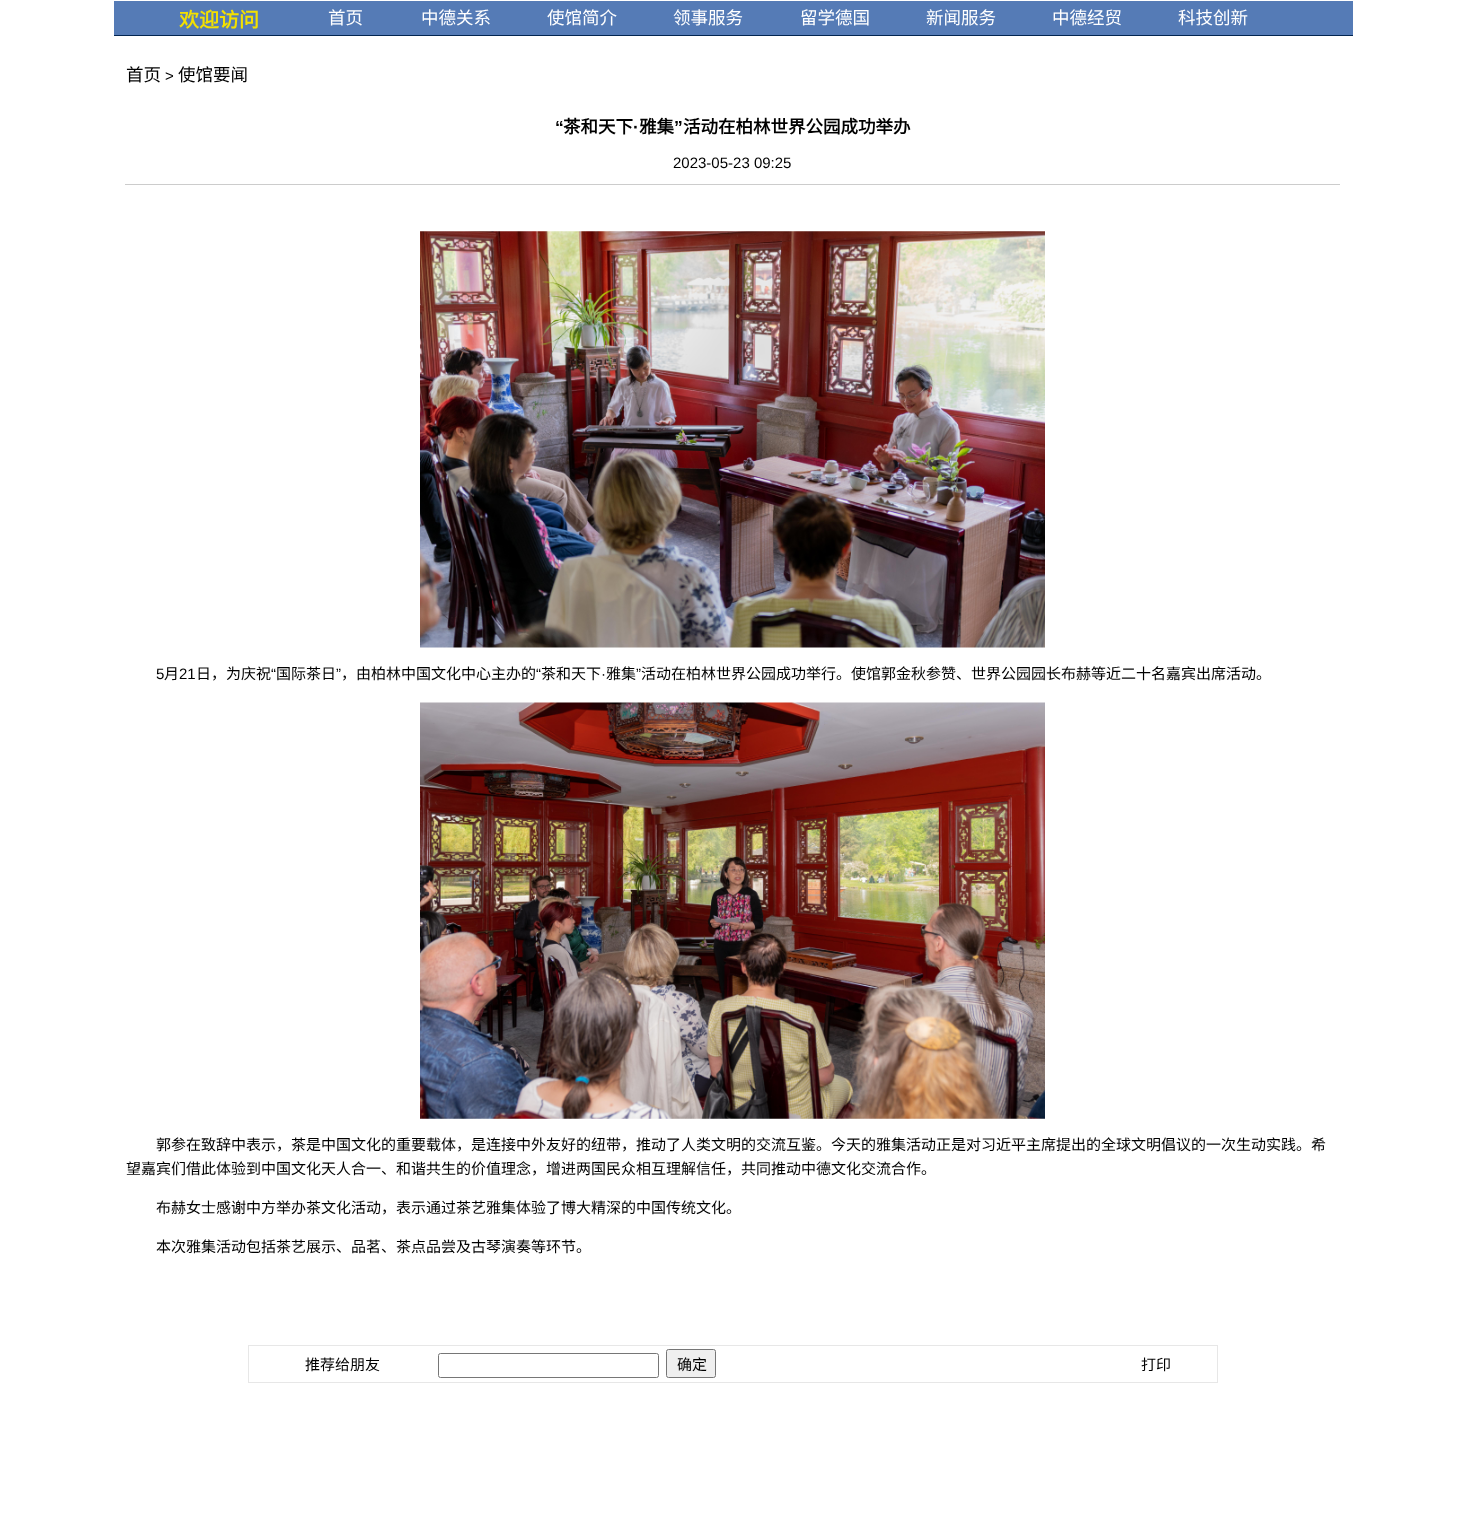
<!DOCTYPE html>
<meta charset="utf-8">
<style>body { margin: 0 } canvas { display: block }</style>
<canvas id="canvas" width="1465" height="1514"></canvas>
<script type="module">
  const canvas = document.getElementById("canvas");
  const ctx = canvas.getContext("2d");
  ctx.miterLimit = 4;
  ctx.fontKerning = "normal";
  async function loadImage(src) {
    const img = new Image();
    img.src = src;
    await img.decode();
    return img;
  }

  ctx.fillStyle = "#ffffff";
  ctx.fillRect(0, 0, 1465, 1514);
  ctx.fillStyle = "#022551";
  ctx.fillRect(114, 35, 1239, 1);
  ctx.fillStyle = "#557bb6";
  ctx.fillRect(114, 1, 1239, 34);
  ctx.font = "bold 20px Noto Sans CJK SC";
  ctx.fillStyle = "#f3e000";
  ctx.fillText("欢迎访问", 179, 27);
  ctx.font = "17.5px Noto Sans CJK SC";
  ctx.fillStyle = "#ffffff";
  ctx.fillText("首页", 328, 24);
  ctx.fillText("中德关系", 421, 24);
  ctx.fillText("使馆简介", 547, 24);
  ctx.fillText("领事服务", 673, 24);
  ctx.fillText("留学德国", 800, 24);
  ctx.fillText("新闻服务", 926, 24);
  ctx.fillText("中德经贸", 1052, 24);
  ctx.fillText("科技创新", 1178, 24);
  ctx.fillStyle = "#000000";
  ctx.fillText("首页", 126, 81);
  ctx.font = "15px Liberation Sans";
  ctx.fillText(">", 165, 81);
  ctx.font = "17.5px Noto Sans CJK SC";
  ctx.fillText("使馆要闻", 178, 81);
  ctx.font = "bold 17.5px Liberation Sans";
  ctx.fillText("“", 555, 133);
  ctx.font = "bold 17.5px Noto Sans CJK SC";
  ctx.fillText("茶和天下", 563, 133);
  ctx.fillText("雅集", 639, 133);
  ctx.font = "bold 17.5px Liberation Sans";
  ctx.fillText("”", 674, 133);
  ctx.font = "bold 17.5px Noto Sans CJK SC";
  ctx.fillText("活动在柏林世界公园成功举办", 683, 133);
  ctx.font = "bold 17.5px Liberation Sans";
  ctx.fillText("·", 633, 133);
  ctx.font = "15px Liberation Sans";
  ctx.fillText("2023-05-23 09:25", 673, 168);
  ctx.fillStyle = "#cccccc";
  ctx.fillRect(125, 184, 1215, 1);
  ctx.drawImage(await loadImage("img1.png"), 420, 231, 625, 417);
  ctx.fillStyle = "#000000";
  ctx.fillText("5", 156, 679);
  ctx.font = "15px Noto Sans CJK SC";
  ctx.fillText("月", 164, 679);
  ctx.font = "15px Liberation Sans";
  ctx.fillText("21", 179, 679);
  ctx.font = "15px Noto Sans CJK SC";
  ctx.fillText("日，为庆祝", 196, 679);
  ctx.font = "15px Liberation Sans";
  ctx.fillText("“", 271, 679);
  ctx.font = "15px Noto Sans CJK SC";
  ctx.fillText("国际茶日", 276, 679);
  ctx.font = "15px Liberation Sans";
  ctx.fillText("”", 336, 679);
  ctx.font = "15px Noto Sans CJK SC";
  ctx.fillText("，由柏林中国文化中心主办的", 341, 679);
  ctx.font = "15px Liberation Sans";
  ctx.fillText("“", 536, 679);
  ctx.font = "15px Noto Sans CJK SC";
  ctx.fillText("茶和天下", 541, 679);
  ctx.fillText("雅集", 606, 679);
  ctx.font = "15px Liberation Sans";
  ctx.fillText("”", 636, 679);
  ctx.font = "15px Noto Sans CJK SC";
  ctx.fillText("活动在柏林世界公园成功举行。使馆郭金秋参赞、世界公园园长布赫等近二十名嘉宾出席活动。", 641, 679);
  ctx.font = "15px Liberation Sans";
  ctx.fillText("·", 601, 679);
  ctx.drawImage(await loadImage("img2.png"), 420, 702, 625, 417);
  ctx.font = "15px Noto Sans CJK SC";
  ctx.fillText("郭参在致辞中表示，茶是中国文化的重要载体，是连接中外友好的纽带，推动了人类文明的交流互鉴。今天的雅集活动正是对习近平主席提出的全球文明倡议的一次生动实践。希", 156, 1150);
  ctx.fillText("望嘉宾们借此体验到中国文化天人合一、和谐共生的价值理念，增进两国民众相互理解信任，共同推动中德文化交流合作。", 126, 1174);
  ctx.fillText("布赫女士感谢中方举办茶文化活动，表示通过茶艺雅集体验了博大精深的中国传统文化。", 156, 1213);
  ctx.fillText("本次雅集活动包括茶艺展示、品茗、茶点品尝及古琴演奏等环节。", 156, 1252);
  ctx.strokeStyle = "#e7e7e7";
  ctx.strokeRect(248.5, 1345.5, 969, 37);
  ctx.fillText("推荐给朋友", 305, 1370);
  ctx.beginPath();
  ctx.roundRect(438.5, 1353.5, 220, 24, 2);
  ctx.strokeStyle = "#767676";
  ctx.stroke();
  ctx.fillStyle = "#efefef";
  ctx.beginPath();
  ctx.roundRect(666.5, 1349.5, 49, 28, 2);
  ctx.fill();
  ctx.stroke();
  ctx.fillStyle = "#000000";
  ctx.fillText("确定", 677, 1370);
  ctx.fillText("打印", 1141, 1370);
</script>
